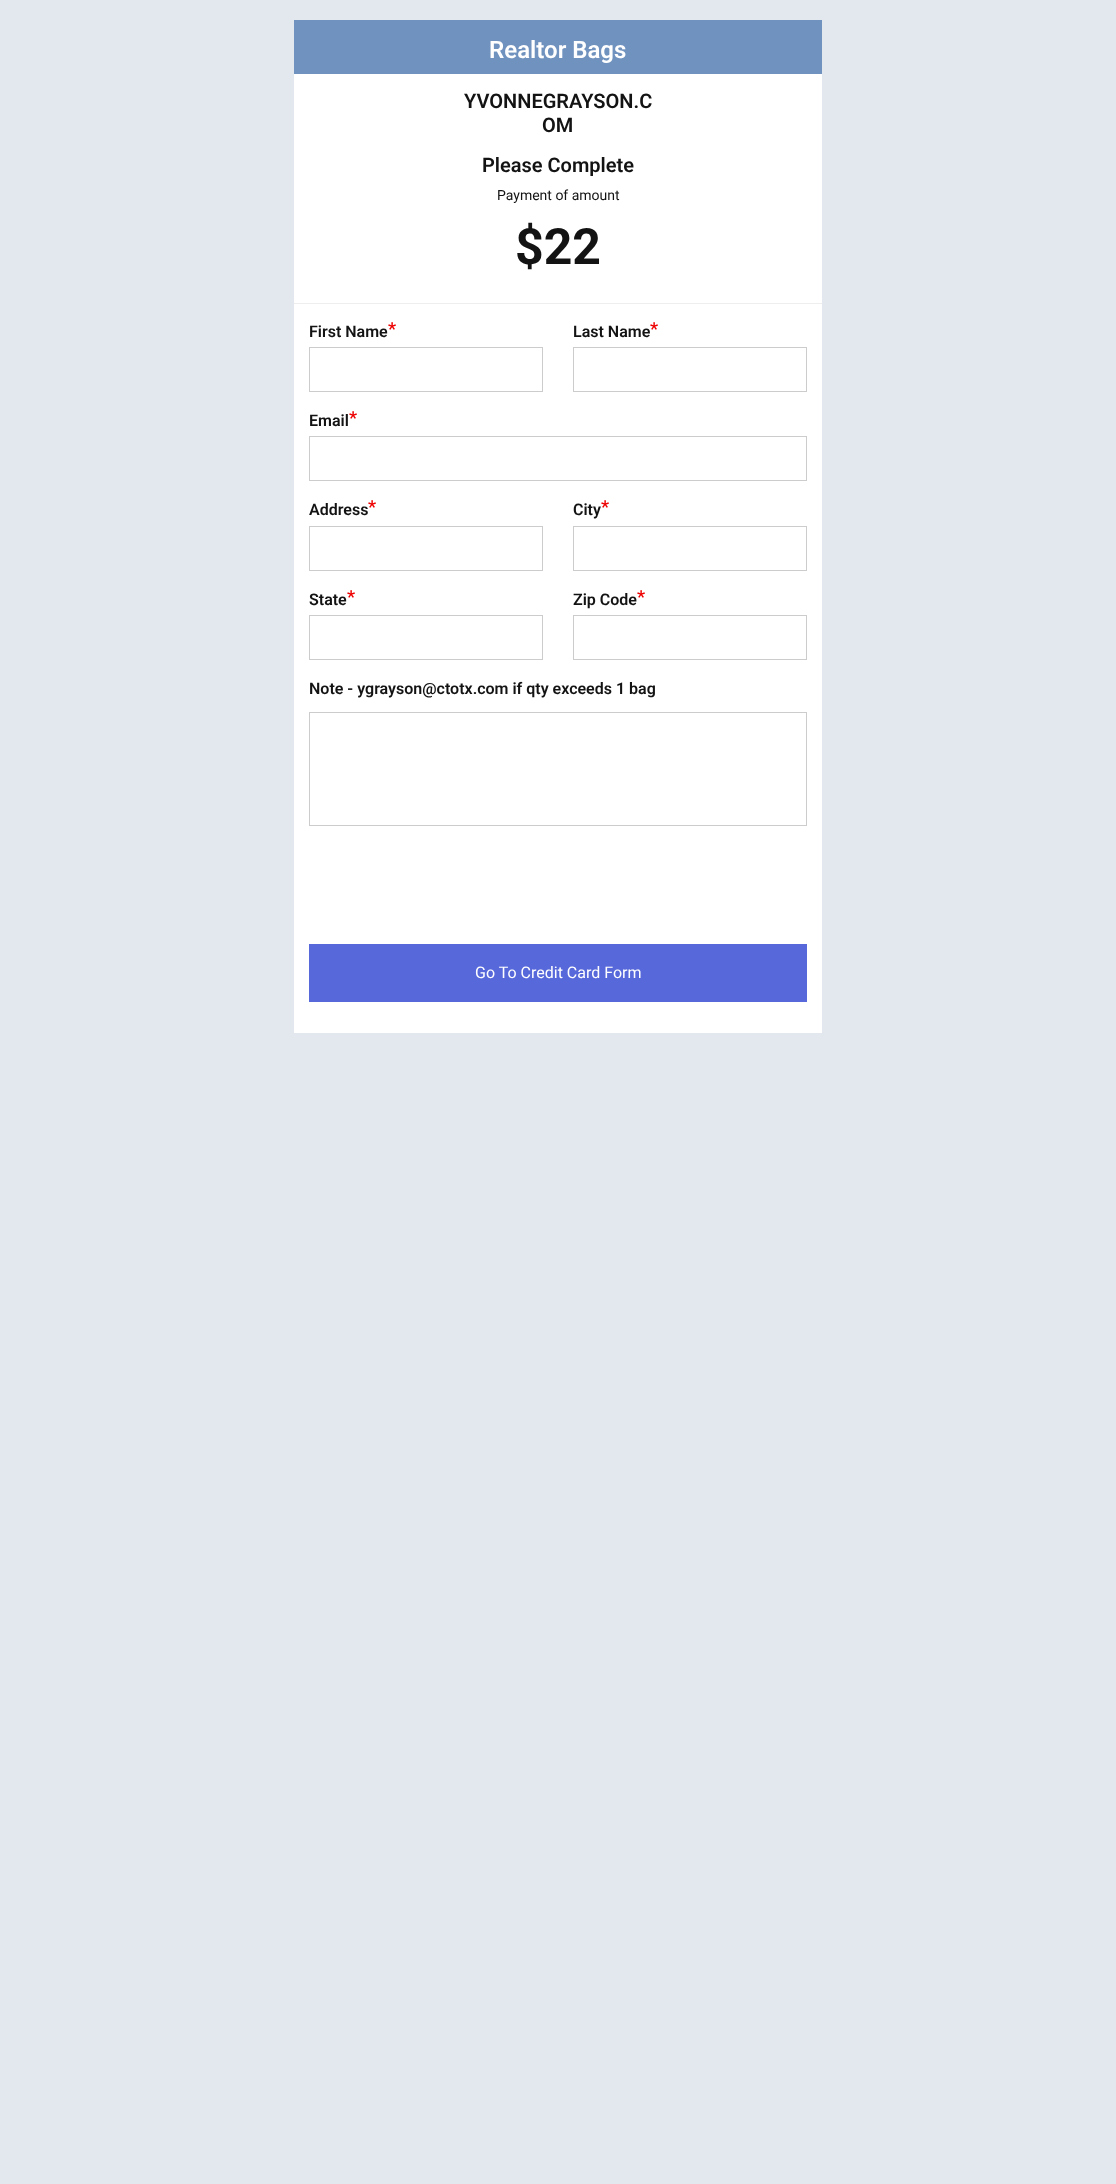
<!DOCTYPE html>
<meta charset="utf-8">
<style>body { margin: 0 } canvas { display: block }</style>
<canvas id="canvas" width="1116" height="2184"></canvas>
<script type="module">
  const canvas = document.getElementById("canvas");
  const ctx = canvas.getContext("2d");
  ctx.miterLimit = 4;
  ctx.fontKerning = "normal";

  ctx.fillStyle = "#e3e8ee";
  ctx.fillRect(0, 0, 1116, 2184);
  ctx.fillStyle = "#ffffff";
  ctx.fillRect(294, 74, 528, 959);
  ctx.fillStyle = "#eeeeee";
  ctx.fillRect(294, 303, 528, 1);
  ctx.fillStyle = "#7092be";
  ctx.fillRect(294, 20, 528, 54);
  ctx.font = "600 24px Roboto";
  ctx.fillStyle = "#ffffff";
  ctx.fillText("Realtor Bags", 489, 58);
  ctx.font = "600 20px Roboto";
  ctx.fillStyle = "#131313";
  ctx.fillText("YVONNEGRAYSON.C", 464, 108);
  ctx.fillText("OM", 542, 132);
  ctx.fillText("Please Complete", 482, 172);
  ctx.font = "14px Roboto";
  ctx.fillText("Payment of amount", 497, 200);
  ctx.font = "bold 50px Roboto";
  ctx.fillText("$22", 515, 264);
  ctx.font = "600 16px Roboto";
  ctx.fillText("First Name", 309, 337);
  ctx.font = "600 18px Roboto";
  ctx.fillStyle = "#ee0000";
  ctx.fillText("*", 388, 335);
  ctx.strokeStyle = "#cccccc";
  ctx.strokeRect(309.5, 347.5, 233, 44);
  ctx.font = "600 16px Roboto";
  ctx.fillStyle = "#131313";
  ctx.fillText("Last Name", 573, 337);
  ctx.font = "600 18px Roboto";
  ctx.fillStyle = "#ee0000";
  ctx.fillText("*", 650, 335);
  ctx.strokeRect(573.5, 347.5, 233, 44);
  ctx.font = "600 16px Roboto";
  ctx.fillStyle = "#131313";
  ctx.fillText("Email", 309, 426);
  ctx.font = "600 18px Roboto";
  ctx.fillStyle = "#ee0000";
  ctx.fillText("*", 349, 424);
  ctx.strokeRect(309.5, 436.5, 497, 44);
  ctx.font = "600 16px Roboto";
  ctx.fillStyle = "#131313";
  ctx.fillText("Address", 309, 515);
  ctx.font = "600 18px Roboto";
  ctx.fillStyle = "#ee0000";
  ctx.fillText("*", 368, 513);
  ctx.strokeRect(309.5, 526.5, 233, 44);
  ctx.font = "600 16px Roboto";
  ctx.fillStyle = "#131313";
  ctx.fillText("City", 573, 515);
  ctx.font = "600 18px Roboto";
  ctx.fillStyle = "#ee0000";
  ctx.fillText("*", 601, 513);
  ctx.strokeRect(573.5, 526.5, 233, 44);
  ctx.font = "600 16px Roboto";
  ctx.fillStyle = "#131313";
  ctx.fillText("State", 309, 605);
  ctx.font = "600 18px Roboto";
  ctx.fillStyle = "#ee0000";
  ctx.fillText("*", 347, 603);
  ctx.strokeRect(309.5, 615.5, 233, 44);
  ctx.font = "600 16px Roboto";
  ctx.fillStyle = "#131313";
  ctx.fillText("Zip Code", 573, 605);
  ctx.font = "600 18px Roboto";
  ctx.fillStyle = "#ee0000";
  ctx.fillText("*", 637, 603);
  ctx.strokeRect(573.5, 615.5, 233, 44);
  ctx.font = "600 16px Roboto";
  ctx.fillStyle = "#131313";
  ctx.fillText("Note - ygrayson@ctotx.com if qty exceeds 1 bag", 309, 694);
  ctx.strokeRect(309.5, 712.5, 497, 113);
  ctx.fillStyle = "#5768da";
  ctx.fillRect(309, 944, 498, 58);
  ctx.font = "16px Roboto";
  ctx.fillStyle = "#ffffff";
  ctx.fillText("Go To Credit Card Form", 475, 978);
</script>
